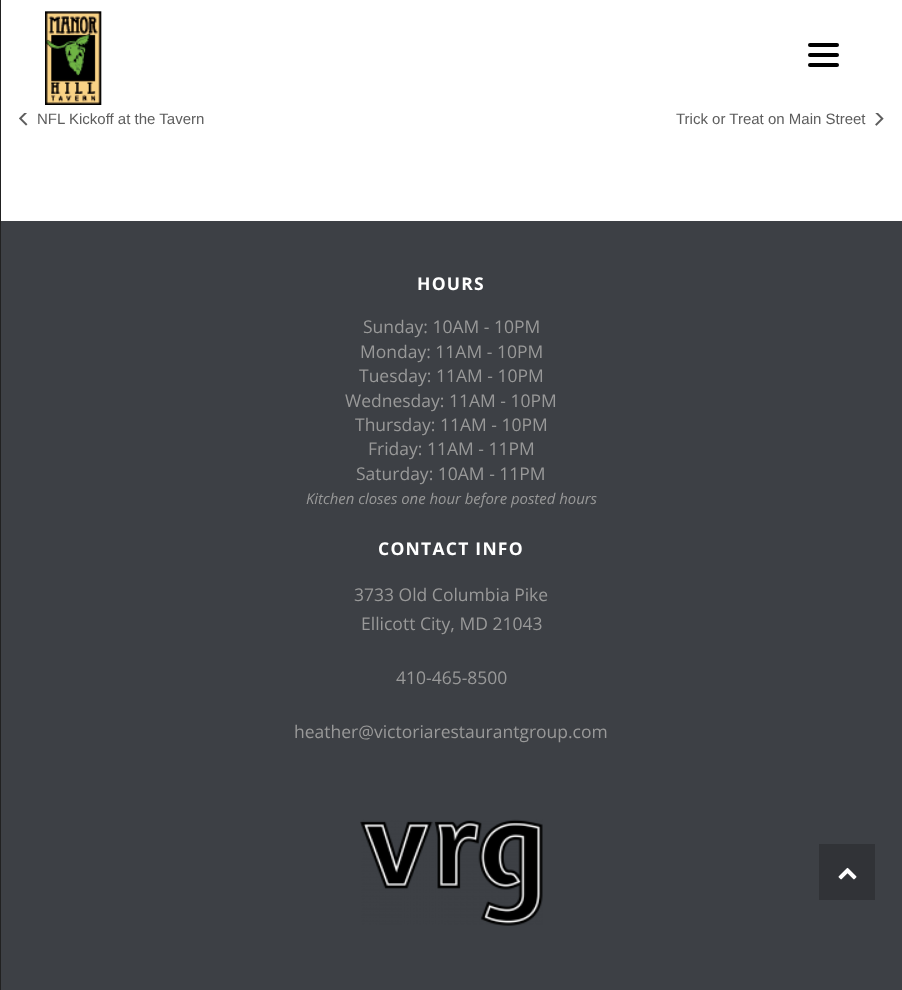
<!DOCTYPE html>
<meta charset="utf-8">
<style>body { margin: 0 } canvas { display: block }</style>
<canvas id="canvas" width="902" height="990"></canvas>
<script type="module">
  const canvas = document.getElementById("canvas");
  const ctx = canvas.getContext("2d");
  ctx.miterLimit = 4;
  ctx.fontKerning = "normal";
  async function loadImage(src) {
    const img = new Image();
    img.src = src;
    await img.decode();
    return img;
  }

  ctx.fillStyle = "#ffffff";
  ctx.fillRect(0, 0, 902, 990);
  ctx.fillStyle = "#212121";
  ctx.fillRect(0, 0, 1, 990);
  ctx.drawImage(await loadImage("img1.png"), 45, 11, 57, 94);
  ctx.fillStyle = "#000000";
  ctx.beginPath();
  ctx.roundRect(808, 53, 31, 4, 2);
  ctx.fill();
  ctx.beginPath();
  ctx.roundRect(808, 43, 31, 4, 2);
  ctx.fill();
  ctx.beginPath();
  ctx.roundRect(808, 63, 31, 4, 2);
  ctx.fill();
  ctx.drawImage(await loadImage("img2.png"), 19, 113, 9, 13);
  ctx.font = "15px Liberation Sans";
  ctx.fillStyle = "#5d5d5d";
  ctx.fillText("NFL Kickoff at the Tavern", 37, 124);
  ctx.fillText("Trick or Treat on Main Street", 676, 124);
  ctx.drawImage(await loadImage("img3.png"), 875, 113, 9, 13);
  ctx.fillStyle = "#3d4045";
  ctx.fillRect(1, 221, 901, 769);
  ctx.letterSpacing = "1.25px";
  ctx.font = "bold 17.5px Open Sans";
  ctx.fillStyle = "#ffffff";
  ctx.fillText("HOURS", 417, 290);
  ctx.letterSpacing = "0px";
  ctx.font = "17.5px Open Sans";
  ctx.fillStyle = "#999999";
  ctx.fillText("Sunday: 10AM - 10PM", 363, 333);
  ctx.fillText("Monday: 11AM - 10PM", 360, 358);
  ctx.fillText("Tuesday: 11AM - 10PM", 359, 382);
  ctx.fillText("Wednesday: 11AM - 10PM", 345, 407);
  ctx.fillText("Thursday: 11AM - 10PM", 355, 431);
  ctx.fillText("Friday: 11AM - 11PM", 368, 455);
  ctx.fillText("Saturday: 10AM - 11PM", 356, 480);
  ctx.font = "italic 14.9px Open Sans";
  ctx.fillText("Kitchen closes one hour before posted hours", 306, 504);
  ctx.letterSpacing = "1.25px";
  ctx.font = "bold 17.5px Open Sans";
  ctx.fillStyle = "#ffffff";
  ctx.fillText("CONTACT INFO", 378, 555);
  ctx.letterSpacing = "0px";
  ctx.font = "17.5px Open Sans";
  ctx.fillStyle = "#999999";
  ctx.fillText("3733 Old Columbia Pike", 354, 601);
  ctx.fillText("Ellicott City, MD 21043", 361, 630);
  ctx.fillText("410-465-8500", 396, 684);
  ctx.fillText("heather@victoriarestaurantgroup.com", 294, 738);
  ctx.drawImage(await loadImage("img4.png"), 360, 819, 183, 107);
  ctx.fillStyle = "#313337";
  ctx.fillRect(819, 844, 56, 56);
  ctx.drawImage(await loadImage("img5.png"), 838, 867, 19, 13);
</script>
